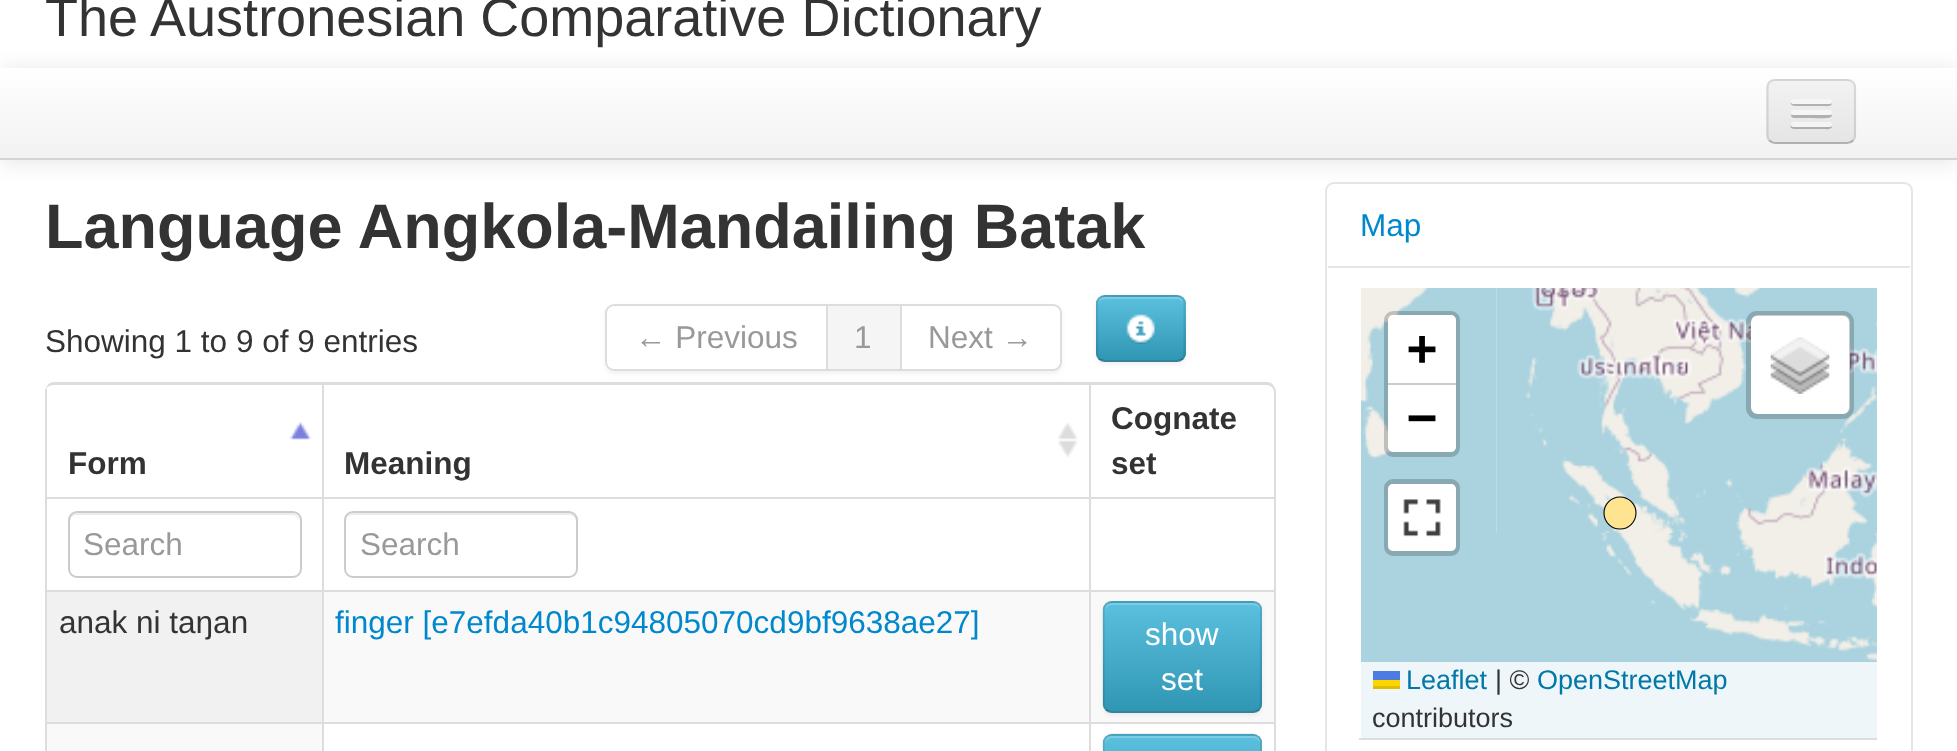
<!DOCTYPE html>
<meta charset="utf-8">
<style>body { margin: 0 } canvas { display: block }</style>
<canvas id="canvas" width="1957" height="751"></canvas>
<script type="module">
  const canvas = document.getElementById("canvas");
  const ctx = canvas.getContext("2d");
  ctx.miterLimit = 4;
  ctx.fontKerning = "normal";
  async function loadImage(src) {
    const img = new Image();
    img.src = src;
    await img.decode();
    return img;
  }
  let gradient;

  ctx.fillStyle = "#ffffff";
  ctx.fillRect(0, 0, 1957, 751);
  ctx.fillStyle = "rgba(0, 0, 0, 0.1)";
  ctx.filter = "blur(11px)";
  ctx.beginPath();
  ctx.rect(0, 70, 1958, 92);
  ctx.fill();
  ctx.filter = "none";
  ctx.font = "54px Liberation Sans";
  ctx.fillStyle = "#333333";
  ctx.fillText("The Austronesian Comparative Dictionary", 45, 36);
  gradient = ctx.createLinearGradient(979, 67, 979, 158);
  gradient.addColorStop(0, "#ffffff");
  gradient.addColorStop(1, "#f2f2f2");
  ctx.fillStyle = gradient;
  ctx.fillRect(0, 68, 1957, 90);
  ctx.fillStyle = "#d4d4d4";
  ctx.fillRect(0, 158, 1957, 2);
  ctx.fillStyle = "#ededed";
  ctx.beginPath();
  ctx.roundRect(1766, 79, 90, 65, 9);
  ctx.fill();
  ctx.save();
  ctx.beginPath();
  ctx.roundRect(1766, 79, 90, 65, 9);
  ctx.clip();
  gradient = ctx.createLinearGradient(1811, 81, 1811, 142);
  gradient.addColorStop(0, "#f2f2f2");
  gradient.addColorStop(1, "#e5e5e5");
  ctx.fillStyle = gradient;
  ctx.fillRect(1766, 81, 90, 61);
  ctx.restore();
  ctx.beginPath();
  ctx.moveTo(1853, 140.5);
  ctx.bezierCurveTo(1851.5, 142, 1849.5, 143, 1847, 143);
  ctx.lineTo(1775, 143);
  ctx.bezierCurveTo(1773, 143, 1771, 142, 1769.5, 140.5);
  ctx.strokeStyle = "rgba(0, 0, 0, 0.25)";
  ctx.lineWidth = 2.2;
  ctx.stroke();
  ctx.beginPath();
  ctx.moveTo(1769.5, 140.5);
  ctx.bezierCurveTo(1768, 139, 1767.5, 137, 1767.5, 135);
  ctx.lineTo(1767.5, 88);
  ctx.bezierCurveTo(1767.5, 85.5, 1768, 83.5, 1769.5, 82);
  ctx.bezierCurveTo(1771, 80.5, 1773, 80, 1775, 80);
  ctx.lineTo(1847, 80);
  ctx.bezierCurveTo(1849.5, 80, 1851.5, 80.5, 1853, 82);
  ctx.bezierCurveTo(1854.5, 83.5, 1855, 85.5, 1855, 88);
  ctx.lineTo(1855, 135);
  ctx.bezierCurveTo(1855, 137, 1854.5, 139, 1853, 140.5);
  ctx.strokeStyle = "rgba(0, 0, 0, 0.1)";
  ctx.stroke();
  ctx.fillStyle = "#b2b2b2";
  ctx.beginPath();
  ctx.moveTo(1791, 102);
  ctx.bezierCurveTo(1789, 107, 1799, 106, 1800, 106);
  ctx.lineTo(1824, 106);
  ctx.bezierCurveTo(1825, 106, 1831, 107, 1832, 104);
  ctx.lineTo(1831, 102);
  ctx.bezierCurveTo(1831, 103, 1830, 104, 1829, 104);
  ctx.lineTo(1793, 104);
  ctx.bezierCurveTo(1792, 104, 1792, 103, 1791, 102);
  ctx.closePath();
  ctx.fill();
  ctx.fillStyle = "#f5f5f5";
  ctx.beginPath();
  ctx.roundRect(1791, 99, 41, 5, 2.5);
  ctx.fill();
  ctx.fillStyle = "#b0b0b0";
  ctx.beginPath();
  ctx.moveTo(1792, 114);
  ctx.bezierCurveTo(1788, 119, 1799, 118, 1800, 118);
  ctx.lineTo(1812, 118);
  ctx.bezierCurveTo(1815, 118, 1829, 119, 1831, 117);
  ctx.bezierCurveTo(1832, 116, 1832, 115, 1831, 114);
  ctx.lineTo(1830, 115);
  ctx.lineTo(1793, 115);
  ctx.closePath();
  ctx.fill();
  ctx.fillStyle = "#f5f5f5";
  ctx.beginPath();
  ctx.roundRect(1791, 110, 41, 5, 2.5);
  ctx.fill();
  ctx.fillStyle = "#aeaeae";
  ctx.beginPath();
  ctx.moveTo(1791, 125);
  ctx.bezierCurveTo(1788, 130, 1799, 129, 1800, 129);
  ctx.lineTo(1824, 129);
  ctx.bezierCurveTo(1825, 129, 1831, 130, 1832, 127);
  ctx.lineTo(1831, 125);
  ctx.lineTo(1830, 126);
  ctx.lineTo(1793, 126);
  ctx.closePath();
  ctx.fill();
  ctx.fillStyle = "#f5f5f5";
  ctx.beginPath();
  ctx.roundRect(1791, 122, 41, 5, 2.5);
  ctx.fill();
  ctx.font = "bold 63px Liberation Sans";
  ctx.fillStyle = "#333333";
  ctx.fillText("Language Angkola-Mandailing Batak", 45, 248);
  ctx.font = "31.5px Liberation Sans";
  ctx.fillText("Showing 1 to 9 of 9 entries", 45, 352);
  ctx.save();
  ctx.beginPath();
  ctx.moveTo(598, 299);
  ctx.lineTo(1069, 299);
  ctx.lineTo(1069, 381);
  ctx.lineTo(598, 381);
  ctx.closePath();
  ctx.moveTo(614, 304);
  ctx.lineTo(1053, 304);
  ctx.bezierCurveTo(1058, 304, 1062, 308, 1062, 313);
  ctx.lineTo(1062, 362);
  ctx.bezierCurveTo(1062, 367, 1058, 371, 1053, 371);
  ctx.lineTo(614, 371);
  ctx.bezierCurveTo(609, 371, 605, 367, 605, 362);
  ctx.lineTo(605, 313);
  ctx.bezierCurveTo(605, 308, 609, 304, 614, 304);
  ctx.closePath();
  ctx.clip("evenodd");
  ctx.fillStyle = "rgba(0, 0, 0, 0.05)";
  ctx.filter = "blur(2px)";
  ctx.beginPath();
  ctx.roundRect(605, 306, 457, 68, 9);
  ctx.fill();
  ctx.filter = "none";
  ctx.restore();
  ctx.beginPath();
  ctx.roundRect(606, 305, 221, 65, [8, 0, 0, 8]);
  ctx.strokeStyle = "#dddddd";
  ctx.lineWidth = 2;
  ctx.stroke();
  ctx.fillStyle = "#999999";
  ctx.fillText("← Previous", 635, 348);
  ctx.fillStyle = "#f5f5f5";
  ctx.fillRect(828, 306, 72, 63);
  ctx.fillStyle = "#dddddd";
  ctx.fillRect(828, 304, 74, 2);
  ctx.fillRect(900, 304, 2, 67);
  ctx.fillRect(828, 369, 74, 2);
  ctx.fillStyle = "#999999";
  ctx.fillText("1", 854, 348);
  ctx.fillStyle = "#dddddd";
  ctx.beginPath();
  ctx.moveTo(902, 304);
  ctx.lineTo(1053, 304);
  ctx.bezierCurveTo(1058, 304, 1062, 308, 1062, 313);
  ctx.lineTo(1062, 362);
  ctx.bezierCurveTo(1062, 367, 1058, 371, 1053, 371);
  ctx.lineTo(902, 371);
  ctx.closePath();
  ctx.moveTo(902, 306);
  ctx.lineTo(1053, 306);
  ctx.bezierCurveTo(1057, 306, 1060, 309, 1060, 313);
  ctx.lineTo(1060, 362);
  ctx.bezierCurveTo(1060, 366, 1057, 369, 1053, 369);
  ctx.lineTo(902, 369);
  ctx.closePath();
  ctx.fill("evenodd");
  ctx.fillStyle = "#999999";
  ctx.fillText("Next →", 928, 348);
  ctx.fillStyle = "rgba(0, 0, 0, 0.05)";
  ctx.filter = "blur(2px)";
  ctx.beginPath();
  ctx.roundRect(1096, 297, 90, 68, 9);
  ctx.fill();
  ctx.filter = "none";
  ctx.fillStyle = "#49afcd";
  ctx.beginPath();
  ctx.roundRect(1096, 295, 90, 67, 9);
  ctx.fill();
  ctx.save();
  ctx.beginPath();
  ctx.roundRect(1096, 295, 90, 67, 9);
  ctx.clip();
  gradient = ctx.createLinearGradient(1141, 297, 1141, 360);
  gradient.addColorStop(0, "#5bc0de");
  gradient.addColorStop(1, "#2f96b4");
  ctx.fillStyle = gradient;
  ctx.fillRect(1096, 297, 90, 63);
  ctx.restore();
  ctx.fillStyle = "rgba(255, 255, 255, 0.2)";
  ctx.beginPath();
  ctx.moveTo(1105, 299);
  ctx.lineTo(1177, 299);
  ctx.bezierCurveTo(1180, 299, 1184, 302, 1184, 306);
  ctx.bezierCurveTo(1184, 294, 1174, 297, 1165, 297);
  ctx.lineTo(1117, 297);
  ctx.bezierCurveTo(1108, 297, 1098, 294, 1098, 306);
  ctx.bezierCurveTo(1098, 302, 1101, 299, 1105, 299);
  ctx.closePath();
  ctx.fill();
  ctx.beginPath();
  ctx.moveTo(1182.5, 359);
  ctx.bezierCurveTo(1181, 360.5, 1179, 361, 1177, 361);
  ctx.lineTo(1105, 361);
  ctx.bezierCurveTo(1102.5, 361, 1100.5, 360.5, 1099, 359);
  ctx.strokeStyle = "rgba(0, 0, 0, 0.25)";
  ctx.lineWidth = 2.2;
  ctx.stroke();
  ctx.beginPath();
  ctx.moveTo(1099, 359);
  ctx.bezierCurveTo(1097.5, 357.5, 1097, 355.5, 1097, 353);
  ctx.lineTo(1097, 304);
  ctx.bezierCurveTo(1097, 301.5, 1097.5, 299.5, 1099, 298);
  ctx.bezierCurveTo(1100.5, 296.5, 1102.5, 296, 1105, 296);
  ctx.lineTo(1177, 296);
  ctx.bezierCurveTo(1179, 296, 1181, 296.5, 1182.5, 298);
  ctx.bezierCurveTo(1184, 299.5, 1184.5, 301.5, 1184.5, 304);
  ctx.lineTo(1184.5, 353);
  ctx.bezierCurveTo(1184.5, 355.5, 1184, 357.5, 1182.5, 359);
  ctx.strokeStyle = "rgba(0, 0, 0, 0.1)";
  ctx.stroke();
  ctx.drawImage(await loadImage("img1.png"), 1126, 314, 29, 30);
  ctx.fillStyle = "#dddddd";
  ctx.beginPath();
  ctx.moveTo(54, 382);
  ctx.lineTo(1267, 382);
  ctx.bezierCurveTo(1272, 382, 1276, 387, 1276, 392);
  ctx.lineTo(1276, 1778);
  ctx.bezierCurveTo(1276, 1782, 1272, 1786, 1267, 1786);
  ctx.lineTo(54, 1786);
  ctx.bezierCurveTo(49, 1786, 45, 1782, 45, 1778);
  ctx.lineTo(45, 392);
  ctx.bezierCurveTo(45, 387, 49, 382, 54, 382);
  ctx.closePath();
  ctx.moveTo(54, 385);
  ctx.lineTo(1267, 385);
  ctx.bezierCurveTo(1270, 385, 1274, 388, 1274, 392);
  ctx.lineTo(1274, 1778);
  ctx.bezierCurveTo(1274, 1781, 1270, 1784, 1267, 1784);
  ctx.lineTo(54, 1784);
  ctx.bezierCurveTo(49, 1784, 45, 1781, 45, 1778);
  ctx.lineTo(45, 392);
  ctx.bezierCurveTo(45, 388, 49, 385, 54, 385);
  ctx.closePath();
  ctx.fill("evenodd");
  ctx.drawImage(await loadImage("img2.png"), 289, 422, 22, 18);
  ctx.fillRect(45, 389, 2, 108);
  ctx.font = "bold 31.5px Liberation Sans";
  ctx.fillStyle = "#333333";
  ctx.fillText("Form", 68, 474);
  ctx.drawImage(await loadImage("img3.png"), 1057, 422, 21, 36);
  ctx.fillStyle = "#dddddd";
  ctx.fillRect(322, 385, 2, 112);
  ctx.fillStyle = "#333333";
  ctx.fillText("Meaning", 344, 474);
  ctx.fillStyle = "#dddddd";
  ctx.fillRect(1089, 385, 2, 112);
  ctx.fillStyle = "#333333";
  ctx.fillText("Cognate", 1111, 429);
  ctx.fillText("set", 1111, 474);
  ctx.fillStyle = "#dddddd";
  ctx.fillRect(45, 497, 1229, 2);
  ctx.fillRect(45, 497, 2, 93);
  ctx.fillStyle = "#ececec";
  ctx.beginPath();
  ctx.moveTo(76, 515);
  ctx.lineTo(292, 515);
  ctx.bezierCurveTo(296, 515, 299, 518, 299, 522);
  ctx.lineTo(299, 520);
  ctx.bezierCurveTo(299, 516, 296, 513, 292, 513);
  ctx.lineTo(77, 513);
  ctx.bezierCurveTo(73, 513, 70, 516, 70, 520);
  ctx.lineTo(70, 522);
  ctx.bezierCurveTo(70, 518, 73, 515, 76, 515);
  ctx.closePath();
  ctx.fill();
  ctx.beginPath();
  ctx.roundRect(69, 512, 232, 65, 8);
  ctx.strokeStyle = "#cccccc";
  ctx.lineWidth = 2;
  ctx.stroke();
  ctx.font = "31.5px Liberation Sans";
  ctx.fillStyle = "#999999";
  ctx.fillText("Search", 83, 555);
  ctx.fillStyle = "#dddddd";
  ctx.fillRect(322, 497, 2, 93);
  ctx.fillStyle = "#ececec";
  ctx.beginPath();
  ctx.moveTo(353, 515);
  ctx.lineTo(569, 515);
  ctx.bezierCurveTo(573, 515, 576, 518, 576, 522);
  ctx.lineTo(576, 520);
  ctx.bezierCurveTo(576, 516, 573, 513, 569, 513);
  ctx.lineTo(354, 513);
  ctx.bezierCurveTo(351, 513, 348, 515, 347, 518);
  ctx.bezierCurveTo(349, 516, 351, 515, 353, 515);
  ctx.closePath();
  ctx.fill();
  ctx.beginPath();
  ctx.roundRect(345, 512, 232, 65, 8);
  ctx.stroke();
  ctx.fillStyle = "#999999";
  ctx.fillText("Search", 360, 555);
  ctx.fillStyle = "#dddddd";
  ctx.fillRect(1089, 497, 2, 93);
  ctx.fillStyle = "#f9f9f9";
  ctx.fillRect(324, 592, 950, 130);
  ctx.fillStyle = "#f1f1f1";
  ctx.fillRect(47, 592, 275, 130);
  ctx.fillStyle = "#dddddd";
  ctx.fillRect(45, 590, 1229, 2);
  ctx.fillRect(45, 590, 2, 132);
  ctx.fillStyle = "#333333";
  ctx.fillText("anak ni taŋan", 59, 633);
  ctx.fillStyle = "#dddddd";
  ctx.fillRect(322, 590, 2, 132);
  ctx.fillStyle = "#0088cc";
  ctx.fillText("finger [e7efda40b1c94805070cd9bf9638ae27]", 335, 633);
  ctx.fillStyle = "#dddddd";
  ctx.fillRect(1089, 590, 2, 132);
  ctx.fillRect(45, 722, 1229, 2);
  ctx.fillStyle = "rgba(0, 0, 0, 0.05)";
  ctx.filter = "blur(2px)";
  ctx.beginPath();
  ctx.roundRect(1103, 603, 159, 113, 9);
  ctx.fill();
  ctx.filter = "none";
  ctx.fillStyle = "#49afcd";
  ctx.beginPath();
  ctx.roundRect(1103, 601, 159, 112, 9);
  ctx.fill();
  ctx.save();
  ctx.beginPath();
  ctx.roundRect(1103, 601, 159, 112, 9);
  ctx.clip();
  gradient = ctx.createLinearGradient(1182, 603, 1182, 711);
  gradient.addColorStop(0, "#5bc0de");
  gradient.addColorStop(1, "#2f96b4");
  ctx.fillStyle = gradient;
  ctx.fillRect(1103, 603, 159, 108);
  ctx.restore();
  ctx.fillStyle = "#7bcce4";
  ctx.beginPath();
  ctx.moveTo(1112, 605);
  ctx.lineTo(1253, 605);
  ctx.bezierCurveTo(1257, 605, 1260, 608, 1260, 612);
  ctx.lineTo(1260, 610);
  ctx.bezierCurveTo(1260, 606, 1257, 603, 1253, 603);
  ctx.lineTo(1112, 603);
  ctx.bezierCurveTo(1108, 603, 1105, 606, 1105, 610);
  ctx.lineTo(1105, 612);
  ctx.bezierCurveTo(1105, 608, 1108, 605, 1112, 605);
  ctx.closePath();
  ctx.fill();
  ctx.beginPath();
  ctx.moveTo(1259, 710);
  ctx.bezierCurveTo(1257.5, 711.5, 1255.5, 712, 1253, 712);
  ctx.lineTo(1111.5, 712);
  ctx.bezierCurveTo(1109.5, 712, 1107.5, 711.5, 1106, 710);
  ctx.strokeStyle = "rgba(0, 0, 0, 0.25)";
  ctx.lineWidth = 2.2;
  ctx.stroke();
  ctx.beginPath();
  ctx.moveTo(1106, 710);
  ctx.bezierCurveTo(1104.5, 708.5, 1103.5, 706.5, 1103.5, 704);
  ctx.lineTo(1103.5, 610);
  ctx.bezierCurveTo(1103.5, 607.5, 1104.5, 605.5, 1106, 604);
  ctx.bezierCurveTo(1107.5, 602.5, 1109.5, 602, 1111.5, 602);
  ctx.lineTo(1253, 602);
  ctx.bezierCurveTo(1255.5, 602, 1257.5, 602.5, 1259, 604);
  ctx.bezierCurveTo(1260.5, 605.5, 1261, 607.5, 1261, 610);
  ctx.lineTo(1261, 704);
  ctx.bezierCurveTo(1261, 706.5, 1260.5, 708.5, 1259, 710);
  ctx.strokeStyle = "rgba(0, 0, 0, 0.1)";
  ctx.stroke();
  ctx.fillStyle = "#ffffff";
  ctx.fillText("show", 1145, 645);
  ctx.fillText("set", 1161, 690);
  ctx.fillStyle = "#f9f9f9";
  ctx.fillRect(47, 724, 275, 27);
  ctx.fillStyle = "#dddddd";
  ctx.fillRect(45, 722, 2, 29);
  ctx.fillRect(322, 722, 2, 29);
  ctx.fillRect(1089, 722, 2, 29);
  ctx.fillStyle = "#49afcd";
  ctx.beginPath();
  ctx.roundRect(1103, 734, 159, 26, 9);
  ctx.fill();
  ctx.save();
  ctx.beginPath();
  ctx.roundRect(1103, 734, 159, 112, 9);
  ctx.clip();
  gradient = ctx.createLinearGradient(1182, 736, 1182, 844);
  gradient.addColorStop(0, "#5bc0de");
  gradient.addColorStop(1, "#2f96b4");
  ctx.fillStyle = gradient;
  ctx.fillRect(1103, 736, 159, 15);
  ctx.restore();
  ctx.fillStyle = "#7bcce4";
  ctx.beginPath();
  ctx.moveTo(1112, 738);
  ctx.lineTo(1253, 738);
  ctx.bezierCurveTo(1257, 738, 1260, 741, 1260, 745);
  ctx.lineTo(1260, 743);
  ctx.bezierCurveTo(1260, 739, 1257, 736, 1253, 736);
  ctx.lineTo(1112, 736);
  ctx.bezierCurveTo(1108, 736, 1105, 739, 1105, 743);
  ctx.lineTo(1105, 745);
  ctx.bezierCurveTo(1105, 741, 1108, 738, 1112, 738);
  ctx.closePath();
  ctx.fill();
  ctx.beginPath();
  ctx.moveTo(1106, 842.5);
  ctx.bezierCurveTo(1104.5, 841, 1103.5, 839, 1103.5, 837);
  ctx.lineTo(1103.5, 742.5);
  ctx.bezierCurveTo(1103.5, 740.5, 1104.5, 738.5, 1106, 737);
  ctx.bezierCurveTo(1107.5, 735.5, 1109.5, 734.5, 1111.5, 734.5);
  ctx.lineTo(1253, 734.5);
  ctx.bezierCurveTo(1255.5, 734.5, 1257.5, 735.5, 1259, 737);
  ctx.bezierCurveTo(1260.5, 738.5, 1261, 740.5, 1261, 742.5);
  ctx.lineTo(1261, 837);
  ctx.bezierCurveTo(1261, 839, 1260.5, 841, 1259, 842.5);
  ctx.stroke();
  ctx.beginPath();
  ctx.roundRect(1326, 183, 586, 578, 8);
  ctx.strokeStyle = "#e5e5e5";
  ctx.lineWidth = 2;
  ctx.stroke();
  ctx.fillStyle = "#0088cc";
  ctx.fillText("Map", 1360, 236);
  ctx.fillStyle = "#e5e5e5";
  ctx.fillRect(1328, 266, 582, 2);
  ctx.drawImage(await loadImage("img4.png"), 1361, 288, 136, 245);
  ctx.drawImage(await loadImage("img5.png"), 1496, 288, 381, 245);
  ctx.fillStyle = "#aad3df";
  ctx.fillRect(1361, 533, 136, 205);
  ctx.drawImage(await loadImage("img6.png"), 1497, 533, 380, 205);
  ctx.fillStyle = "#fee391";
  ctx.beginPath();
  ctx.arc(1620, 513, 16, 0, Math.PI * 2);
  ctx.fill();
  ctx.strokeStyle = "#000000";
  ctx.lineWidth = 1.1;
  ctx.stroke();
  ctx.beginPath();
  ctx.roundRect(1386.5, 313.5, 71, 141, 6.5);
  ctx.strokeStyle = "rgba(0, 0, 0, 0.2)";
  ctx.lineWidth = 5;
  ctx.stroke();
  ctx.fillStyle = "#ffffff";
  ctx.beginPath();
  ctx.roundRect(1388, 315, 68, 70, [5, 5, 0, 0]);
  ctx.fill();
  ctx.fillStyle = "#cccccc";
  ctx.fillRect(1388, 383, 68, 2);
  ctx.font = "bold 50px DejaVu Sans Mono";
  ctx.fillStyle = "#000000";
  ctx.fillText("+", 1407, 365);
  ctx.fillStyle = "#ffffff";
  ctx.beginPath();
  ctx.roundRect(1388, 385, 68, 67, [0, 0, 5, 5]);
  ctx.fill();
  ctx.fillStyle = "#000000";
  ctx.fillText("−", 1407, 434);
  ctx.beginPath();
  ctx.roundRect(1386.5, 481.5, 71, 72, 6.5);
  ctx.strokeStyle = "#88a9b2";
  ctx.stroke();
  ctx.fillStyle = "#ffffff";
  ctx.beginPath();
  ctx.roundRect(1388, 484, 68, 67, 5);
  ctx.fill();
  ctx.drawImage(await loadImage("img7.png"), 1403, 499, 38, 38);
  ctx.beginPath();
  ctx.roundRect(1751, 315, 99, 99, 7);
  ctx.fill();
  ctx.beginPath();
  ctx.roundRect(1748.5, 313.5, 103, 103, 8.5);
  ctx.strokeStyle = "rgba(0, 0, 0, 0.2)";
  ctx.stroke();
  ctx.drawImage(await loadImage("img8.png"), 1770, 337, 60, 57);
  ctx.fillStyle = "rgba(255, 255, 255, 0.8)";
  ctx.fillRect(1361, 662, 516, 76);
  ctx.font = "27px Liberation Sans";
  ctx.fillStyle = "#0078a8";
  ctx.fillText("Leaflet", 1406, 689);
  ctx.fillStyle = "#4c7be1";
  ctx.fillRect(1373, 671, 27, 9);
  ctx.fillStyle = "#ffd500";
  ctx.fillRect(1373, 680, 27, 6);
  ctx.fillStyle = "#e0bc00";
  ctx.fillRect(1373, 686, 27, 3);
  ctx.fillStyle = "#333333";
  ctx.fillText("| ©", 1495, 689);
  ctx.fillStyle = "#0078a8";
  ctx.fillText("OpenStreetMap", 1537, 689);
  ctx.fillStyle = "#333333";
  ctx.fillText("contributors", 1372, 727);
  ctx.fillStyle = "#dddddd";
  ctx.fillRect(1359, 738, 518, 2);
</script>
